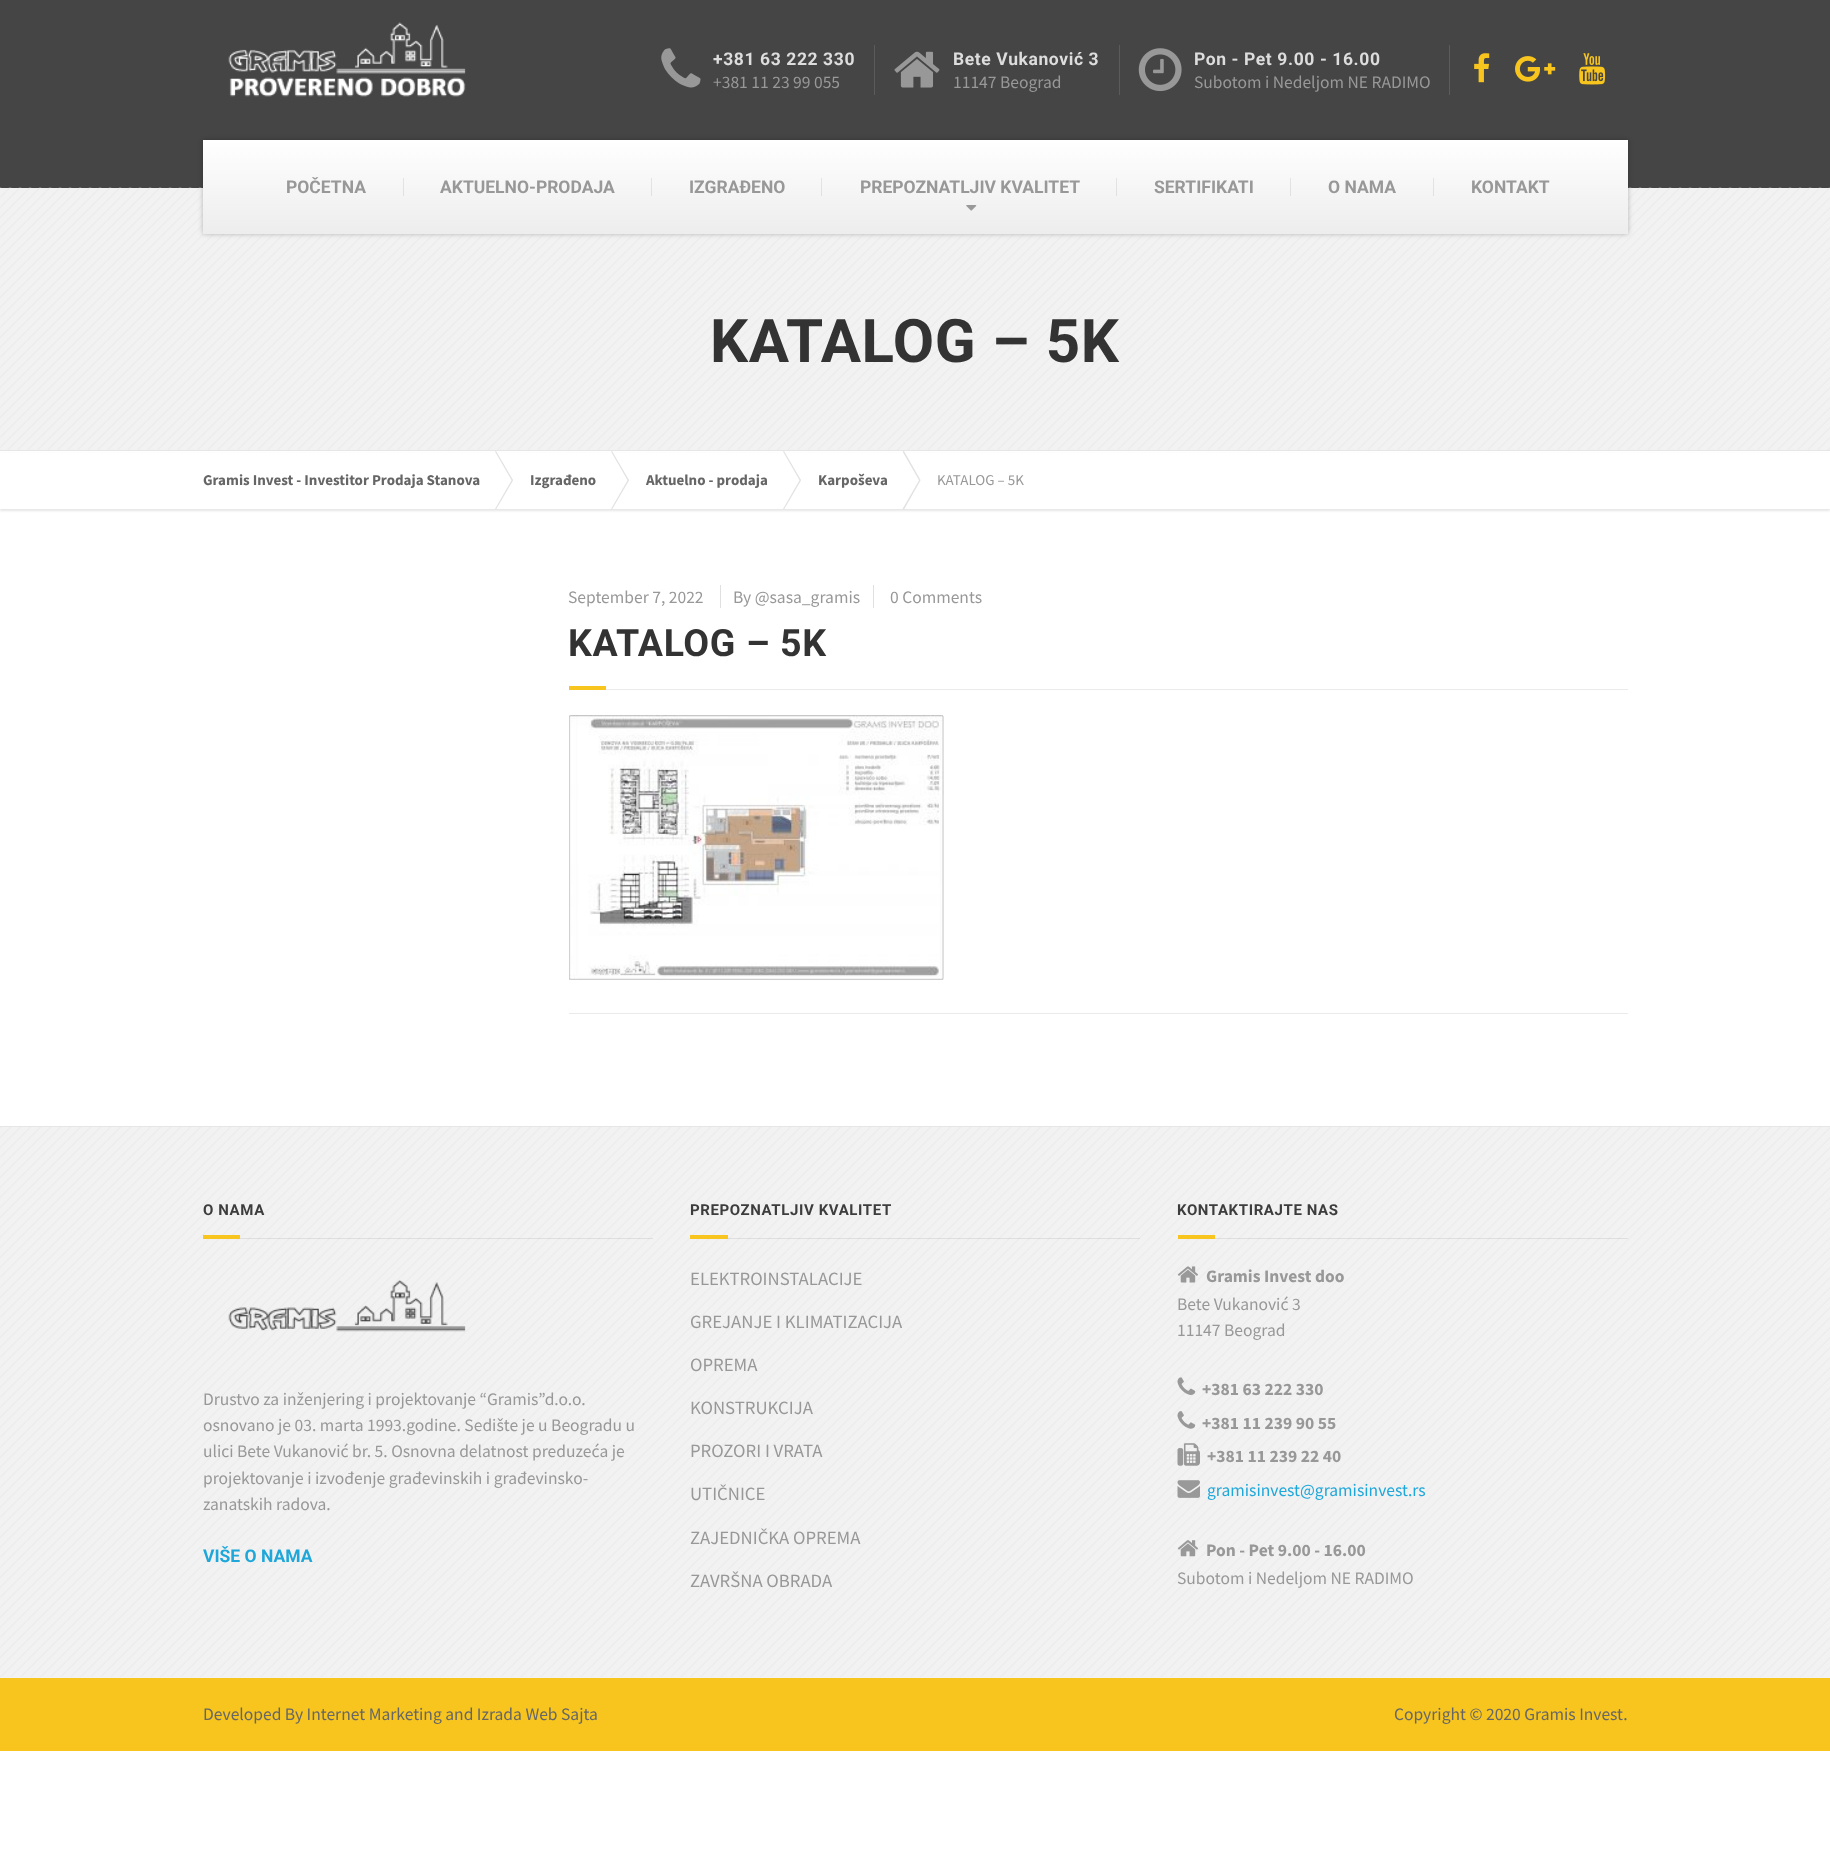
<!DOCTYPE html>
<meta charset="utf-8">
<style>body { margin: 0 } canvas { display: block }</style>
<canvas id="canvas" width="1830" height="1870"></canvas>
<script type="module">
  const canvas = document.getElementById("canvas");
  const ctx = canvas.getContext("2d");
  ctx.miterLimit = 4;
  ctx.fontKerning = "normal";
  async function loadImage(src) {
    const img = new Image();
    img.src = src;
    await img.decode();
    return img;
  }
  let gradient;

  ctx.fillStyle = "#ffffff";
  ctx.fillRect(0, 0, 1830, 1870);
  ctx.fillStyle = "#454545";
  ctx.fillRect(0, 0, 1830, 188);
  ctx.drawImage(await loadImage("img1.png"), 228, 22, 238, 75);
  ctx.fillStyle = "#5b5b5b";
  ctx.fillRect(874, 45, 1, 50);
  ctx.drawImage(await loadImage("img2.png"), 661, 48, 40, 40);
  ctx.letterSpacing = "0.6px";
  ctx.font = "bold 17.5px Roboto";
  ctx.fillStyle = "#dddddd";
  ctx.fillText("+381 63 222 330", 713, 65);
  ctx.letterSpacing = "0px";
  ctx.font = "17.5px Source Sans Pro";
  ctx.fillStyle = "#989898";
  ctx.fillText("+381 11 23 99 055", 713, 88);
  ctx.fillStyle = "#5b5b5b";
  ctx.fillRect(1119, 45, 1, 50);
  ctx.drawImage(await loadImage("img3.png"), 894, 51, 46, 37);
  ctx.letterSpacing = "0.6px";
  ctx.font = "bold 17.5px Roboto";
  ctx.fillStyle = "#dddddd";
  ctx.fillText("Bete Vukanović 3", 953, 65);
  ctx.letterSpacing = "0px";
  ctx.font = "17.5px Source Sans Pro";
  ctx.fillStyle = "#989898";
  ctx.fillText("11147 Beograd", 953, 88);
  ctx.fillStyle = "#5b5b5b";
  ctx.fillRect(1449, 45, 1, 50);
  ctx.drawImage(await loadImage("img4.png"), 1138, 48, 44, 44);
  ctx.letterSpacing = "0.6px";
  ctx.font = "bold 17.5px Roboto";
  ctx.fillStyle = "#dddddd";
  ctx.fillText("Pon - Pet 9.00 - 16.00", 1194, 65);
  ctx.letterSpacing = "0px";
  ctx.font = "17.5px Source Sans Pro";
  ctx.fillStyle = "#989898";
  ctx.fillText("Subotom i Nedeljom NE RADIMO", 1194, 88);
  ctx.drawImage(await loadImage("img5.png"), 1474, 53, 16, 30);
  ctx.drawImage(await loadImage("img6.png"), 1515, 56, 41, 26);
  ctx.drawImage(await loadImage("img7.png"), 1579, 53, 27, 32);
  ctx.fillStyle = "#f2f2f2";
  ctx.fillRect(0, 188, 1830, 262);
  ctx.drawImage(await loadImage("img9.png"), 0, 187, 1830, 263);
  ctx.fillStyle = "rgba(0, 0, 0, 0.25)";
  ctx.filter = "blur(2.5px)";
  ctx.beginPath();
  ctx.rect(203, 140, 1425, 94);
  ctx.fill();
  ctx.filter = "none";
  gradient = ctx.createLinearGradient(915, 140, 915, 234);
  gradient.addColorStop(0, "#ffffff");
  gradient.addColorStop(1, "#ededed");
  ctx.fillStyle = gradient;
  ctx.fillRect(203, 140, 1425, 94);
  ctx.font = "bold 17.5px Roboto";
  ctx.fillStyle = "#989898";
  ctx.fillText("POČETNA", 286, 193);
  ctx.fillStyle = "rgba(0, 0, 0, 0.08)";
  ctx.fillRect(403, 178, 1, 18);
  ctx.fillStyle = "#989898";
  ctx.fillText("AKTUELNO-PRODAJA", 440, 193);
  ctx.fillStyle = "rgba(0, 0, 0, 0.08)";
  ctx.fillRect(651, 178, 1, 18);
  ctx.fillStyle = "#989898";
  ctx.fillText("IZGRAĐENO", 689, 193);
  ctx.fillStyle = "rgba(0, 0, 0, 0.08)";
  ctx.fillRect(821, 178, 1, 18);
  ctx.fillStyle = "#989898";
  ctx.fillText("PREPOZNATLJIV KVALITET", 860, 193);
  ctx.fillStyle = "rgba(0, 0, 0, 0.08)";
  ctx.fillRect(1116, 178, 1, 18);
  ctx.drawImage(await loadImage("img8.png"), 966, 205, 11, 6);
  ctx.fillStyle = "#989898";
  ctx.fillText("SERTIFIKATI", 1154, 193);
  ctx.fillStyle = "rgba(0, 0, 0, 0.08)";
  ctx.fillRect(1290, 178, 1, 18);
  ctx.fillStyle = "#989898";
  ctx.fillText("O NAMA", 1328, 193);
  ctx.fillStyle = "rgba(0, 0, 0, 0.08)";
  ctx.fillRect(1433, 178, 1, 18);
  ctx.fillStyle = "#989898";
  ctx.fillText("KONTAKT", 1471, 193);
  ctx.fillStyle = "#e6e6e6";
  ctx.fillRect(0, 450, 1830, 1);
  ctx.letterSpacing = "0.6px";
  ctx.font = "bold 60px Roboto";
  ctx.fillStyle = "#333333";
  ctx.fillText("KATALOG – 5K", 710, 362);
  ctx.fillStyle = "#e6e6e6";
  ctx.filter = "blur(1px)";
  ctx.beginPath();
  ctx.rect(0, 454, 1830, 57);
  ctx.fill();
  ctx.filter = "none";
  ctx.fillStyle = "#ffffff";
  ctx.fillRect(0, 453, 1830, 56);
  ctx.letterSpacing = "0px";
  ctx.font = "bold 15px Source Sans Pro";
  ctx.fillStyle = "#666666";
  ctx.fillText("Gramis Invest - Investitor Prodaja Stanova", 203, 485);
  ctx.fillStyle = "#e2e2e2";
  ctx.beginPath();
  ctx.moveTo(495, 451.5);
  ctx.lineTo(496, 451);
  ctx.lineTo(513, 480);
  ctx.lineTo(512, 481);
  ctx.closePath();
  ctx.fill();
  ctx.beginPath();
  ctx.moveTo(512, 479.5);
  ctx.lineTo(513, 480.5);
  ctx.lineTo(496, 509.5);
  ctx.lineTo(495, 509);
  ctx.closePath();
  ctx.fill();
  ctx.fillStyle = "#666666";
  ctx.fillText("Izgrađeno", 530, 485);
  ctx.fillStyle = "#e2e2e2";
  ctx.beginPath();
  ctx.moveTo(611, 451.5);
  ctx.lineTo(612, 451);
  ctx.lineTo(629, 480);
  ctx.lineTo(628, 481);
  ctx.closePath();
  ctx.fill();
  ctx.beginPath();
  ctx.moveTo(628, 479.5);
  ctx.lineTo(629, 480.5);
  ctx.lineTo(612, 509.5);
  ctx.lineTo(611, 509);
  ctx.closePath();
  ctx.fill();
  ctx.fillStyle = "#666666";
  ctx.fillText("Aktuelno - prodaja", 646, 485);
  ctx.fillStyle = "#e2e2e2";
  ctx.beginPath();
  ctx.moveTo(783, 451.5);
  ctx.lineTo(784, 451);
  ctx.lineTo(801, 480);
  ctx.lineTo(800, 481);
  ctx.closePath();
  ctx.fill();
  ctx.beginPath();
  ctx.moveTo(800, 479.5);
  ctx.lineTo(801, 480.5);
  ctx.lineTo(784, 509.5);
  ctx.lineTo(783, 509);
  ctx.closePath();
  ctx.fill();
  ctx.fillStyle = "#666666";
  ctx.fillText("Karpoševa", 818, 485);
  ctx.fillStyle = "#e2e2e2";
  ctx.beginPath();
  ctx.moveTo(902.5, 451.5);
  ctx.lineTo(904, 451);
  ctx.lineTo(920.5, 480);
  ctx.lineTo(919.5, 481);
  ctx.closePath();
  ctx.fill();
  ctx.beginPath();
  ctx.moveTo(919.5, 479.5);
  ctx.lineTo(920.5, 480.5);
  ctx.lineTo(904, 509.5);
  ctx.lineTo(902.5, 509);
  ctx.closePath();
  ctx.fill();
  ctx.font = "15px Source Sans Pro";
  ctx.fillStyle = "#989898";
  ctx.fillText("KATALOG – 5K", 937, 485);
  ctx.font = "17.5px Source Sans Pro";
  ctx.fillText("September 7, 2022", 568, 603);
  ctx.fillText("By @sasa_gramis", 733, 603);
  ctx.fillStyle = "#e0e0e0";
  ctx.fillRect(873, 585, 1, 23);
  ctx.fillRect(720, 585, 1, 23);
  ctx.fillStyle = "#989898";
  ctx.fillText("0 Comments", 890, 603);
  ctx.fillStyle = "#ebebeb";
  ctx.fillRect(606, 689, 1022, 1);
  ctx.letterSpacing = "0.6px";
  ctx.font = "bold 37.5px Roboto";
  ctx.fillStyle = "#333333";
  ctx.fillText("KATALOG – 5K", 568, 656);
  ctx.fillStyle = "#f7c51e";
  ctx.fillRect(569, 686, 37, 4);
  ctx.fillStyle = "#ebebeb";
  ctx.fillRect(569, 1013, 1059, 1);
  ctx.drawImage(await loadImage("img10.png"), 569, 715, 375, 265);
  ctx.fillStyle = "#f2f2f2";
  ctx.fillRect(0, 1127, 1830, 551);
  ctx.drawImage(await loadImage("img11.png"), 0, 1127, 1830, 550);
  ctx.fillStyle = "#e6e6e6";
  ctx.fillRect(0, 1126, 1830, 1);
  ctx.fillStyle = "rgba(0, 0, 0, 0.08)";
  ctx.fillRect(240, 1238, 413, 1);
  ctx.font = "bold 15px Roboto";
  ctx.fillStyle = "#3d3d3d";
  ctx.fillText("O NAMA", 203, 1215);
  ctx.fillStyle = "#f7c51e";
  ctx.fillRect(203, 1235, 37, 4);
  ctx.drawImage(await loadImage("img12.png"), 228, 1280, 238, 52);
  ctx.letterSpacing = "0px";
  ctx.font = "17.5px Source Sans Pro";
  ctx.fillStyle = "#989898";
  ctx.fillText("Drustvo za inženjering i projektovanje “Gramis”d.o.o.", 203, 1405);
  ctx.fillText("osnovano je 03. marta 1993.godine. Sedište je u Beogradu u", 203, 1431);
  ctx.fillText("ulici Bete Vukanović br. 5. Osnovna delatnost preduzeća je", 203, 1457);
  ctx.fillText("projektovanje i izvođenje građevinskih i građevinsko-", 203, 1484);
  ctx.fillText("zanatskih radova.", 203, 1510);
  ctx.font = "bold 17.5px Roboto";
  ctx.fillStyle = "#1fa7da";
  ctx.fillText("VIŠE O NAMA", 203, 1562);
  ctx.fillStyle = "rgba(0, 0, 0, 0.08)";
  ctx.fillRect(728, 1238, 412, 1);
  ctx.letterSpacing = "0.6px";
  ctx.font = "bold 15px Roboto";
  ctx.fillStyle = "#3d3d3d";
  ctx.fillText("PREPOZNATLJIV KVALITET", 690, 1215);
  ctx.fillStyle = "#f7c51e";
  ctx.fillRect(690, 1235, 38, 4);
  ctx.letterSpacing = "0px";
  ctx.font = "18.75px Source Sans Pro";
  ctx.fillStyle = "#989898";
  ctx.fillText("ELEKTROINSTALACIJE", 690, 1285);
  ctx.fillText("GREJANJE I KLIMATIZACIJA", 690, 1328);
  ctx.fillText("OPREMA", 690, 1371);
  ctx.fillText("KONSTRUKCIJA", 690, 1414);
  ctx.fillText("PROZORI I VRATA", 690, 1457);
  ctx.fillText("UTIČNICE", 690, 1500);
  ctx.fillText("ZAJEDNIČKA OPREMA", 690, 1544);
  ctx.fillText("ZAVRŠNA OBRADA", 690, 1587);
  ctx.fillStyle = "rgba(0, 0, 0, 0.08)";
  ctx.fillRect(1215, 1238, 413, 1);
  ctx.letterSpacing = "0.6px";
  ctx.font = "bold 15px Roboto";
  ctx.fillStyle = "#3d3d3d";
  ctx.fillText("KONTAKTIRAJTE NAS", 1177, 1215);
  ctx.fillStyle = "#f7c51e";
  ctx.fillRect(1178, 1235, 37, 4);
  ctx.drawImage(await loadImage("img13.png"), 1177, 1266, 21, 17);
  ctx.letterSpacing = "0px";
  ctx.font = "bold 17.5px Source Sans Pro";
  ctx.fillStyle = "#989898";
  ctx.fillText("Gramis Invest doo", 1206, 1282);
  ctx.font = "17.5px Source Sans Pro";
  ctx.fillText("Bete Vukanović 3", 1177, 1310);
  ctx.fillText("11147 Beograd", 1177, 1336);
  ctx.drawImage(await loadImage("img14.png"), 1177, 1377, 19, 18);
  ctx.font = "bold 17.5px Source Sans Pro";
  ctx.fillText("+381 63 222 330", 1202, 1395);
  ctx.drawImage(await loadImage("img15.png"), 1177, 1411, 19, 18);
  ctx.fillText("+381 11 239 90 55", 1202, 1429);
  ctx.drawImage(await loadImage("img16.png"), 1177, 1443, 23, 23);
  ctx.fillText("+381 11 239 22 40", 1207, 1462);
  ctx.drawImage(await loadImage("img17.png"), 1177, 1480, 23, 18);
  ctx.font = "17.5px Source Sans Pro";
  ctx.fillStyle = "#1fa7da";
  ctx.fillText("gramisinvest@gramisinvest.rs", 1207, 1496);
  ctx.drawImage(await loadImage("img18.png"), 1177, 1540, 21, 17);
  ctx.font = "bold 17.5px Source Sans Pro";
  ctx.fillStyle = "#989898";
  ctx.fillText("Pon - Pet 9.00 - 16.00", 1206, 1556);
  ctx.font = "17.5px Source Sans Pro";
  ctx.fillText("Subotom i Nedeljom NE RADIMO", 1177, 1584);
  ctx.fillStyle = "#f7c51e";
  ctx.fillRect(0, 1678, 1830, 73);
  ctx.fillStyle = "#666666";
  ctx.fillText("Developed By Internet Marketing and Izrada Web Sajta", 203, 1720);
  ctx.fillText("Copyright © 2020 Gramis Invest.", 1394, 1720);
</script>
